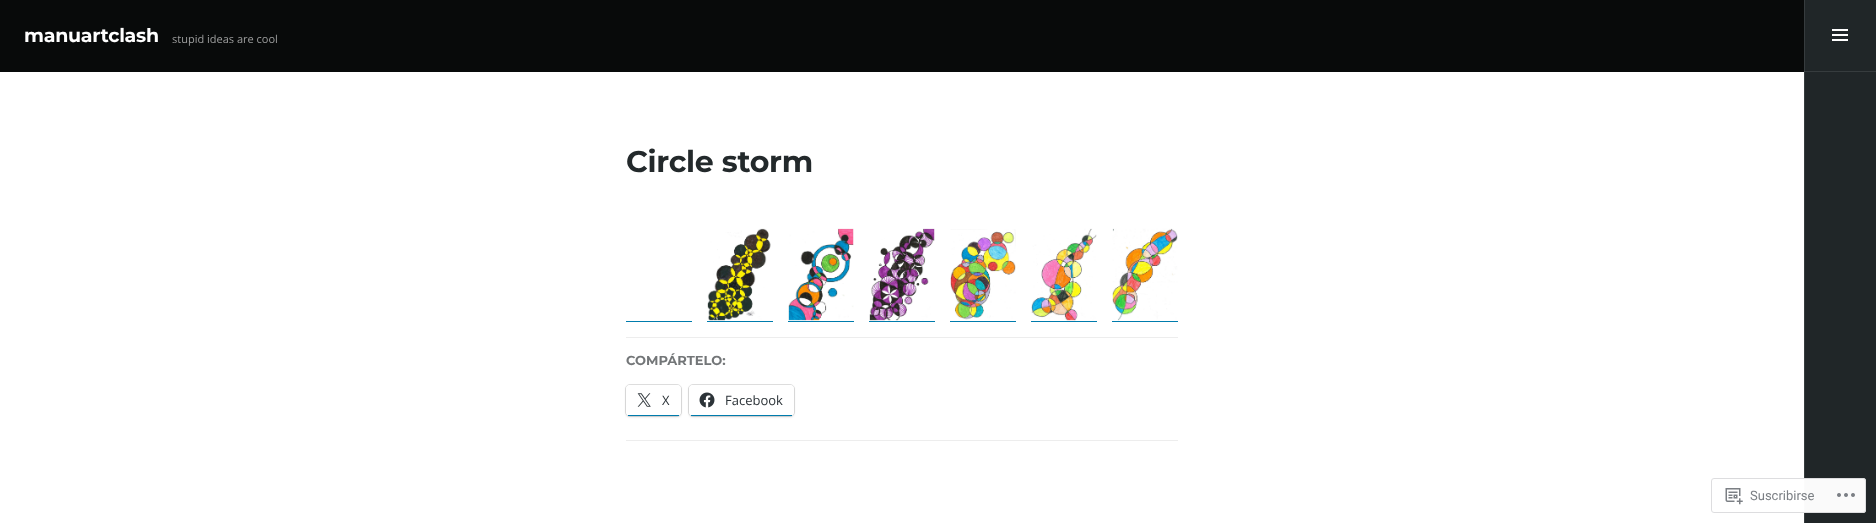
<!DOCTYPE html>
<meta charset="utf-8">
<style>body { margin: 0 } canvas { display: block }</style>
<canvas id="canvas" width="1876" height="523"></canvas>
<script type="module">
  const canvas = document.getElementById("canvas");
  const ctx = canvas.getContext("2d");
  ctx.miterLimit = 4;
  ctx.fontKerning = "normal";
  async function loadImage(src) {
    const img = new Image();
    img.src = src;
    await img.decode();
    return img;
  }

  ctx.fillStyle = "#ffffff";
  ctx.fillRect(0, 0, 1876, 523);
  ctx.fillStyle = "#080a0a";
  ctx.fillRect(0, 0, 1804, 72);
  ctx.letterSpacing = "-0.25px";
  ctx.font = "bold 19px Montserrat";
  ctx.fillStyle = "#ffffff";
  ctx.fillText("manuartclash", 24, 42);
  ctx.letterSpacing = "0px";
  ctx.font = "11px Open Sans";
  ctx.fillStyle = "#9c9d9d";
  ctx.fillText("stupid ideas are cool", 172, 43);
  ctx.fillStyle = "#202628";
  ctx.fillRect(1805, 0, 71, 523);
  ctx.drawImage(await loadImage("img1.png"), 1832, 29, 16, 12);
  ctx.letterSpacing = "-0.25px";
  ctx.font = "bold 30px Montserrat";
  ctx.fillStyle = "#23292b";
  ctx.fillText("Circle storm", 626, 172);
  ctx.fillStyle = "#007cad";
  ctx.fillRect(626, 321, 66, 1);
  ctx.fillRect(707, 321, 66, 1);
  ctx.drawImage(await loadImage("img2.png"), 707, 228, 64, 93);
  ctx.fillRect(788, 321, 66, 1);
  ctx.drawImage(await loadImage("img3.png"), 788, 228, 66, 93);
  ctx.fillRect(869, 321, 66, 1);
  ctx.drawImage(await loadImage("img4.png"), 869, 228, 66, 93);
  ctx.fillRect(950, 321, 66, 1);
  ctx.drawImage(await loadImage("img5.png"), 950, 229, 66, 91);
  ctx.fillRect(1031, 321, 66, 1);
  ctx.drawImage(await loadImage("img6.png"), 1031, 228, 66, 93);
  ctx.fillRect(1112, 321, 66, 1);
  ctx.drawImage(await loadImage("img7.png"), 1112, 228, 66, 93);
  ctx.fillStyle = "#ededed";
  ctx.fillRect(626, 337, 552, 1);
  ctx.letterSpacing = "0px";
  ctx.font = "bold 13px Montserrat";
  ctx.fillStyle = "#737678";
  ctx.fillText("COMPÁRTELO:", 626, 365);
  ctx.beginPath();
  ctx.roundRect(625.5, 384.5, 56, 32, 4.5);
  ctx.strokeStyle = "#e0e0e0";
  ctx.stroke();
  ctx.fillStyle = "rgba(0, 0, 0, 0.12)";
  ctx.filter = "blur(1px)";
  ctx.beginPath();
  ctx.roundRect(626, 386, 55, 31, 4);
  ctx.fill();
  ctx.filter = "none";
  ctx.fillStyle = "#ffffff";
  ctx.beginPath();
  ctx.roundRect(626, 385, 55, 31, 4);
  ctx.fill();
  ctx.fillStyle = "#007cad";
  ctx.fillRect(628, 415, 51, 1);
  ctx.drawImage(await loadImage("img8.png"), 637, 393, 14, 14);
  ctx.font = "13px Open Sans";
  ctx.fillStyle = "#2c3338";
  ctx.fillText("X", 662, 405);
  ctx.beginPath();
  ctx.roundRect(688.5, 384.5, 106, 32, 4.5);
  ctx.stroke();
  ctx.fillStyle = "rgba(0, 0, 0, 0.12)";
  ctx.filter = "blur(1px)";
  ctx.beginPath();
  ctx.roundRect(689, 386, 105, 31, 4);
  ctx.fill();
  ctx.filter = "none";
  ctx.fillStyle = "#ffffff";
  ctx.beginPath();
  ctx.roundRect(689, 385, 105, 31, 4);
  ctx.fill();
  ctx.fillStyle = "#007cad";
  ctx.fillRect(691, 415, 101, 1);
  ctx.drawImage(await loadImage("img9.png"), 699, 392, 16, 16);
  ctx.fillStyle = "#2c3338";
  ctx.fillText("Facebook", 725, 405);
  ctx.fillStyle = "#ededed";
  ctx.fillRect(626, 440, 552, 1);
  ctx.fillStyle = "#363c3e";
  ctx.fillRect(1804, 71, 72, 1);
  ctx.fillRect(1804, 0, 1, 523);
  ctx.fillStyle = "#4a5051";
  ctx.fillRect(1804, 71, 1, 1);
  ctx.fillStyle = "rgba(255, 255, 255, 0.98)";
  ctx.beginPath();
  ctx.roundRect(1711, 478, 155, 35, 3);
  ctx.fill();
  ctx.beginPath();
  ctx.roundRect(1711.5, 478.5, 154, 34, 2.5);
  ctx.strokeStyle = "rgba(220, 220, 222, 0.98)";
  ctx.stroke();
  ctx.drawImage(await loadImage("img10.png"), 1725, 488, 18, 17);
  ctx.font = "13px Roboto";
  ctx.fillStyle = "#7b7f84";
  ctx.fillText("Suscribirse", 1750, 500);
  ctx.drawImage(await loadImage("img11.png"), 1837, 493, 18, 4);
</script>
